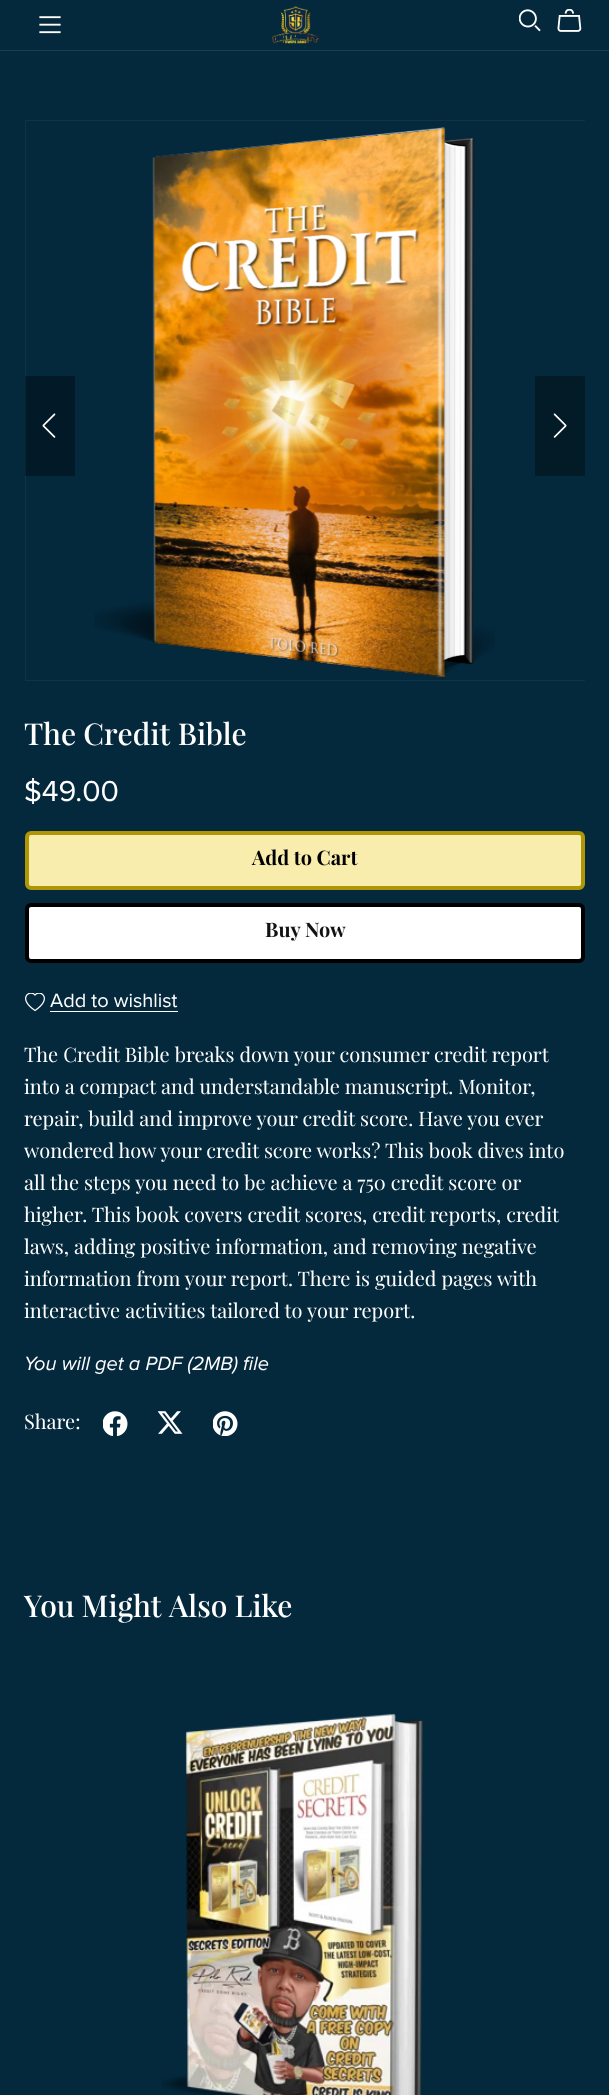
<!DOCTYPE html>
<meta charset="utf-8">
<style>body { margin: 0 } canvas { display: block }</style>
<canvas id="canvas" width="609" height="2095"></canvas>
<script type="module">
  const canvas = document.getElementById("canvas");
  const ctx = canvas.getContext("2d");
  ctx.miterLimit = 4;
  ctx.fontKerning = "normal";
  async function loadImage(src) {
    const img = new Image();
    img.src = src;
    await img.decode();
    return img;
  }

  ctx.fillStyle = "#04283c";
  ctx.fillRect(0, 0, 609, 2095);
  ctx.fillStyle = "#1d3e50";
  ctx.fillRect(0, 50, 609, 1);
  ctx.drawImage(await loadImage("img1.png"), 39, 16, 22, 18);
  ctx.drawImage(await loadImage("img2.png"), 272, 6, 47, 38);
  ctx.drawImage(await loadImage("img3.png"), 519, 9, 22, 23);
  ctx.drawImage(await loadImage("img4.png"), 557, 9, 25, 23);
  ctx.save();
  ctx.beginPath();
  ctx.rect(25, 120, 560, 561);
  ctx.clip();
  ctx.strokeStyle = "#113346";
  ctx.strokeRect(25.5, 120.5, 560, 560);
  ctx.restore();
  ctx.drawImage(await loadImage("img5.png"), 94, 127, 401, 550);
  ctx.fillStyle = "rgba(0, 0, 0, 0.35)";
  ctx.fillRect(25, 376, 50, 100);
  ctx.drawImage(await loadImage("img6.png"), 42, 413, 14, 25);
  ctx.fillStyle = "#031a27";
  ctx.fillRect(535, 376, 50, 100);
  ctx.drawImage(await loadImage("img7.png"), 553, 413, 14, 25);
  ctx.font = "600 30px Playfair Display";
  ctx.fillStyle = "#ffffff";
  ctx.fillText("The Credit Bible", 24, 745);
  ctx.font = "30px Proxima Nova";
  ctx.fillText("$49.00", 24, 801);
  ctx.fillStyle = "#f8edac";
  ctx.beginPath();
  ctx.roundRect(27, 833, 556, 55, 4);
  ctx.fill();
  ctx.strokeStyle = "#ae9607";
  ctx.lineWidth = 4;
  ctx.stroke();
  ctx.font = "bold 20px Playfair Display";
  ctx.fillStyle = "#000000";
  ctx.fillText("Add to Cart", 252, 865);
  ctx.fillStyle = "#ffffff";
  ctx.beginPath();
  ctx.roundRect(27, 905, 556, 56, 4);
  ctx.fill();
  ctx.strokeStyle = "#000000";
  ctx.stroke();
  ctx.fillStyle = "#121212";
  ctx.fillText("Buy Now", 265, 937);
  ctx.drawImage(await loadImage("img8.png"), 25, 993, 20, 19);
  ctx.font = "20px Proxima Nova";
  ctx.fillStyle = "#ffffff";
  ctx.fillText("Add to wishlist", 50, 1007);
  ctx.fillRect(50, 1011, 128, 1);
  ctx.font = "20px Playfair Display";
  ctx.fillText("The Credit Bible breaks down your consumer credit report", 24, 1062);
  ctx.fillText("into a compact and understandable manuscript. Monitor,", 24, 1094);
  ctx.fillText("repair, build and improve your credit score. Have you ever", 24, 1126);
  ctx.fillText("wondered how your credit score works? This book dives into", 24, 1158);
  ctx.fillText("all the steps you need to be achieve a 750 credit score or", 24, 1190);
  ctx.fillText("higher. This book covers credit scores, credit reports, credit", 24, 1222);
  ctx.fillText("laws, adding positive information, and removing negative", 24, 1254);
  ctx.fillText("information from your report. There is guided pages with", 24, 1286);
  ctx.fillText("interactive activities tailored to your report.", 24, 1318);
  ctx.font = "italic 20px Proxima Nova";
  ctx.fillText("You will get a PDF (2MB) file", 24, 1370);
  ctx.font = "20px Playfair Display";
  ctx.fillText("Share:", 24, 1429);
  ctx.drawImage(await loadImage("img9.png"), 103, 1411, 25, 25);
  ctx.drawImage(await loadImage("img10.png"), 158, 1411, 25, 23);
  ctx.drawImage(await loadImage("img11.png"), 213, 1411, 25, 25);
  ctx.font = "600 30px Playfair Display";
  ctx.fillText("You Might Also Like", 24, 1617);
  ctx.drawImage(await loadImage("img12.png"), 161, 1713, 262, 382);
</script>
